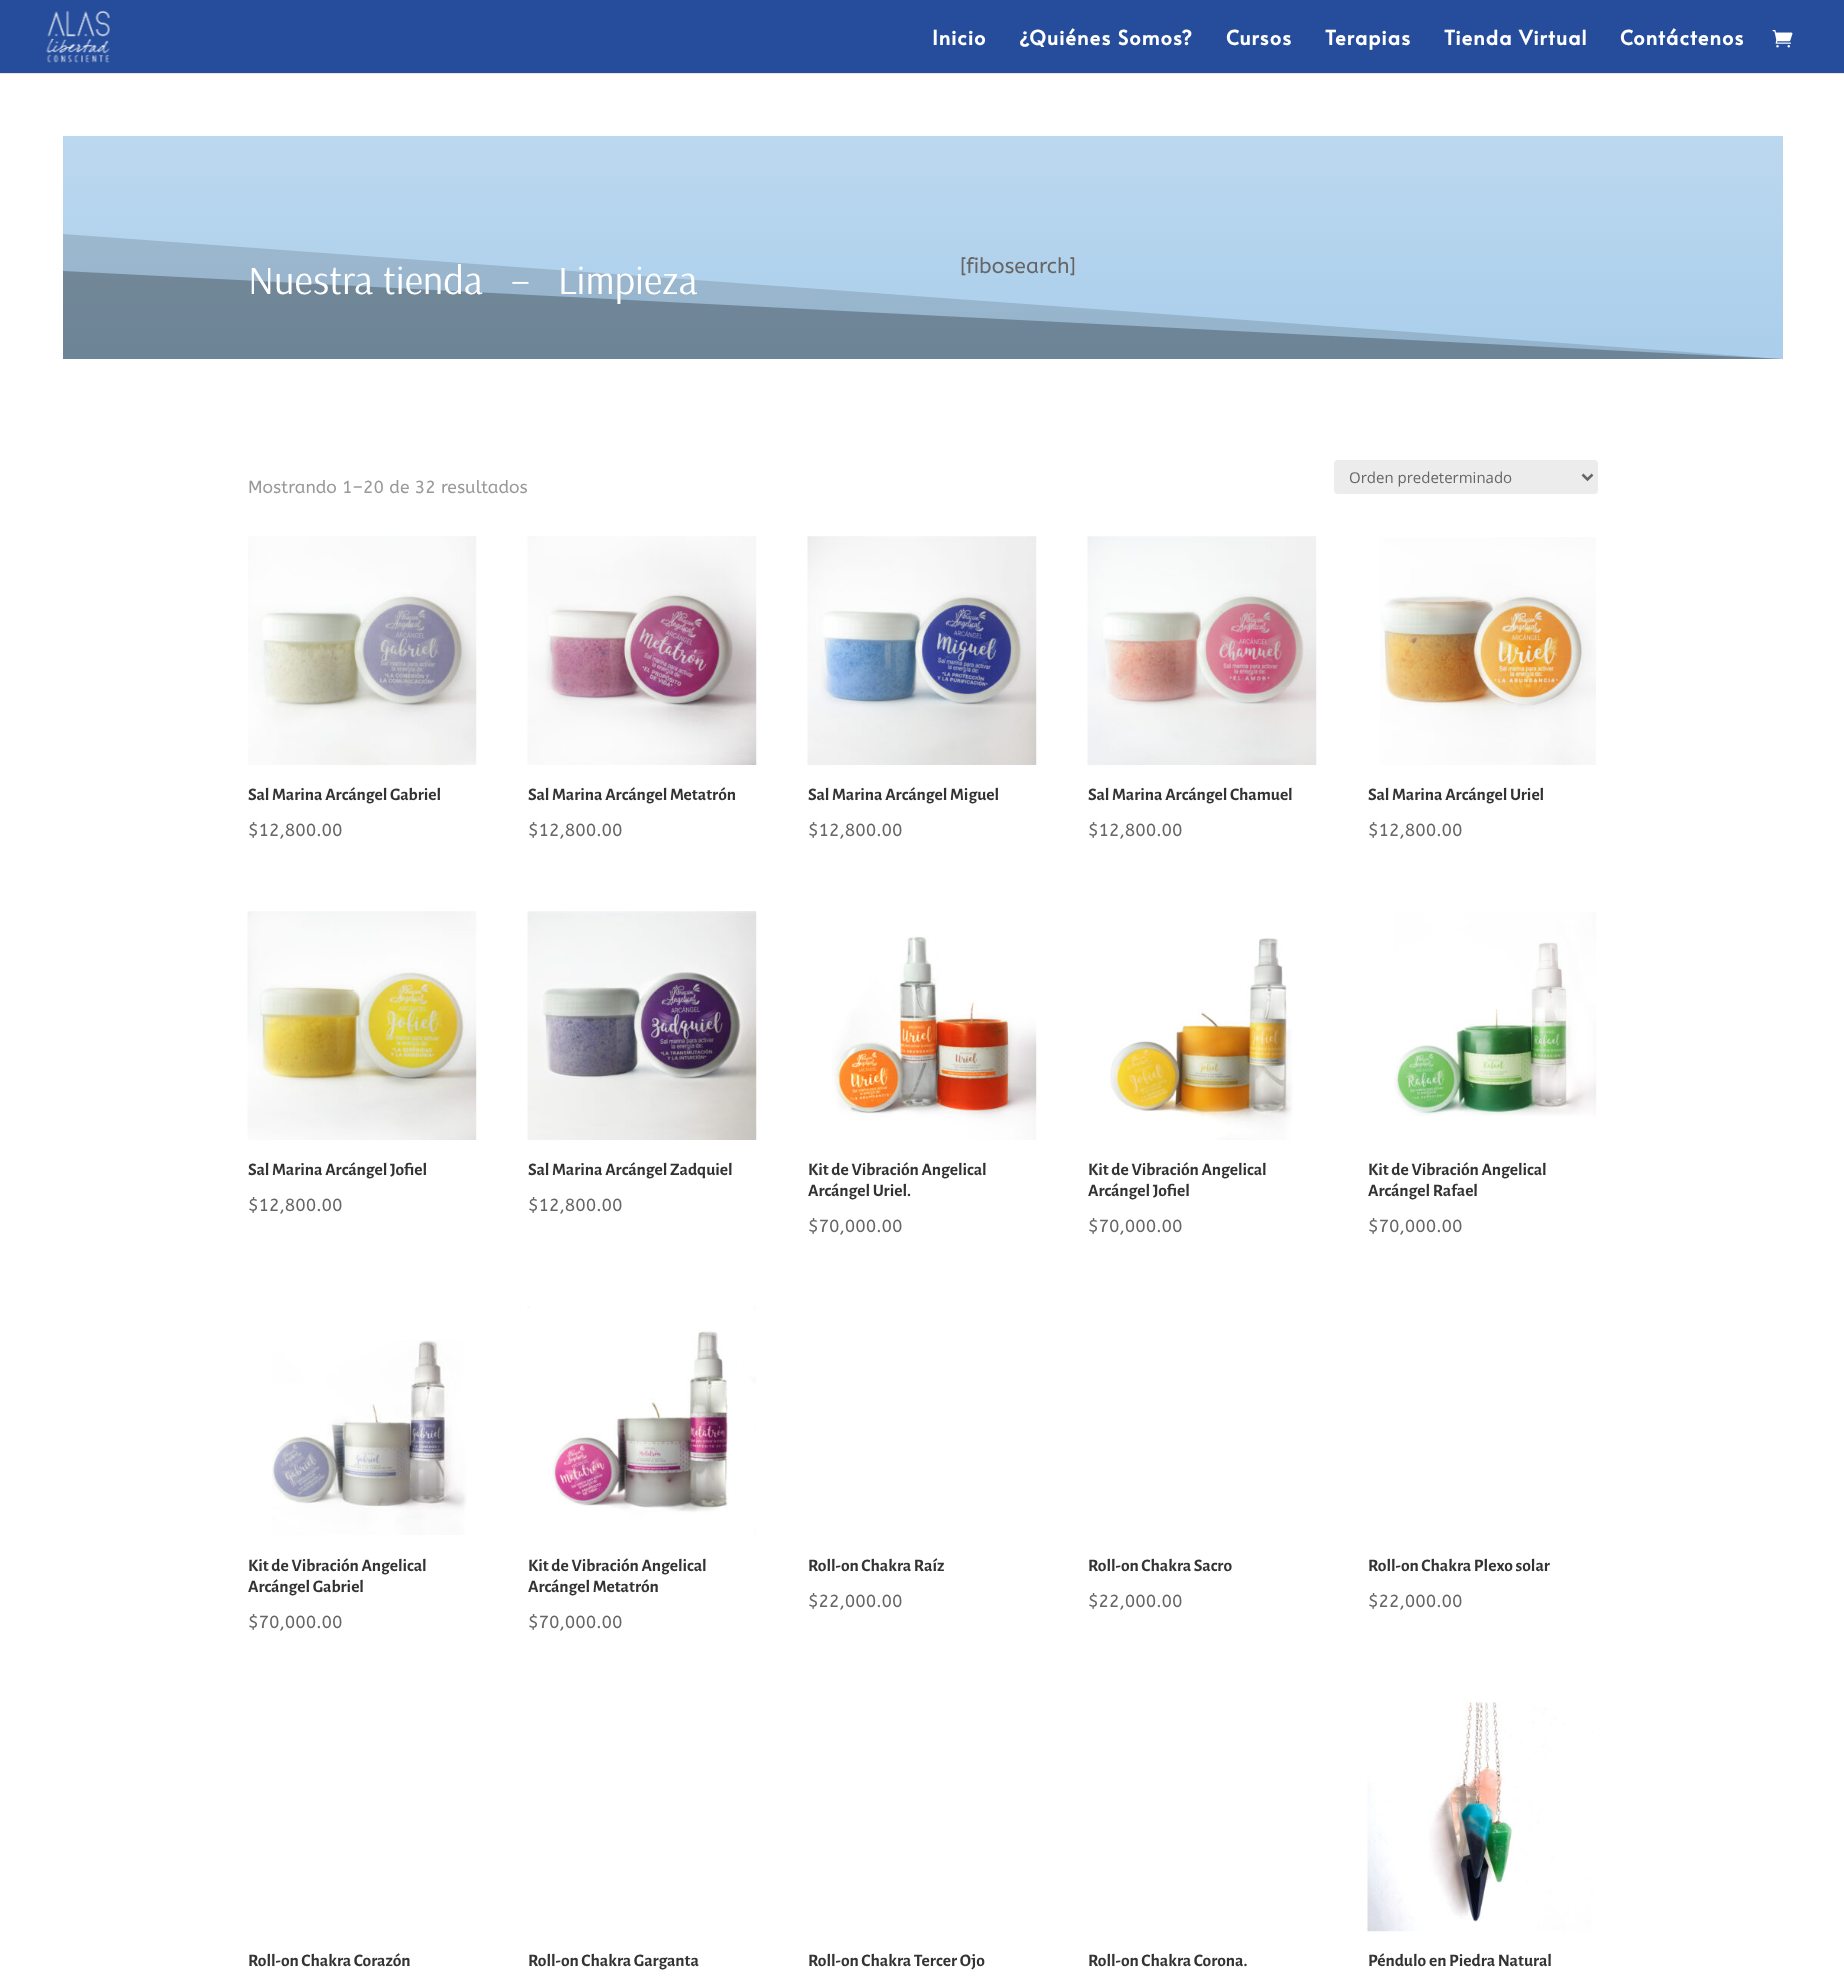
<!DOCTYPE html>
<meta charset="utf-8">
<style>body { margin: 0 } canvas { display: block }</style>
<canvas id="canvas" width="1844" height="1981"></canvas>
<script type="module">
  const canvas = document.getElementById("canvas");
  const ctx = canvas.getContext("2d");
  ctx.miterLimit = 4;
  ctx.fontKerning = "normal";
  async function loadImage(src) {
    const img = new Image();
    img.src = src;
    await img.decode();
    return img;
  }
  let gradient;

  ctx.fillStyle = "#ffffff";
  ctx.fillRect(0, 0, 1844, 1981);
  ctx.fillStyle = "#e6e6e6";
  ctx.fillRect(0, 73, 1844, 1);
  ctx.fillStyle = "#254d9c";
  ctx.fillRect(0, 0, 1844, 73);
  ctx.drawImage(await loadImage("img1.png"), 46, 10, 64, 53);
  ctx.letterSpacing = "1.25px";
  ctx.font = "bold 20px Alata";
  ctx.fillStyle = "#ffffff";
  ctx.fillText("Inicio", 932, 45);
  ctx.fillText("¿Quiénes Somos?", 1019, 45);
  ctx.fillText("Cursos", 1226, 45);
  ctx.fillText("Terapias", 1325, 45);
  ctx.fillText("Tienda Virtual", 1444, 45);
  ctx.fillText("Contáctenos", 1620, 45);
  ctx.drawImage(await loadImage("img2.png"), 1772, 30, 21, 18);
  gradient = ctx.createLinearGradient(923, 136, 923, 359);
  gradient.addColorStop(0, "#bcd8ef");
  gradient.addColorStop(1, "#aaceeb");
  ctx.fillStyle = gradient;
  ctx.fillRect(63, 136, 1720, 223);
  ctx.save();
  ctx.beginPath();
  ctx.rect(63, 234, 1720, 125);
  ctx.clip();
  ctx.fillStyle = "rgba(0, 0, 0, 0.13)";
  ctx.beginPath();
  ctx.moveTo(62, 234);
  ctx.lineTo(62, 359);
  ctx.lineTo(1782, 359);
  ctx.closePath();
  ctx.fill();
  ctx.fillStyle = "rgba(0, 0, 0, 0.26)";
  ctx.beginPath();
  ctx.moveTo(62, 271);
  ctx.lineTo(62, 359);
  ctx.lineTo(1782, 359);
  ctx.closePath();
  ctx.fill();
  ctx.restore();
  ctx.letterSpacing = "0px";
  ctx.font = "40px Arsenal";
  ctx.fillStyle = "#ffffff";
  ctx.fillText("Nuestra tienda   –   Limpieza", 248, 294);
  ctx.font = "21.25px ABeeZee";
  ctx.fillStyle = "#666666";
  ctx.fillText("[fibosearch]", 960, 273);
  ctx.font = "17.5px ABeeZee";
  ctx.fillStyle = "#999999";
  ctx.fillText("Mostrando 1–20 de 32 resultados", 248, 493);
  ctx.fillStyle = "#ececec";
  ctx.beginPath();
  ctx.roundRect(1334, 460, 264, 34, 4);
  ctx.fill();
  ctx.beginPath();
  ctx.moveTo(1582.5, 474.5);
  ctx.lineTo(1587.5, 479.5);
  ctx.lineTo(1592.5, 474.5);
  ctx.strokeStyle = "#666666";
  ctx.lineWidth = 2.5;
  ctx.stroke();
  ctx.font = "15px Open Sans";
  ctx.fillStyle = "#666666";
  ctx.fillText("Orden predeterminado", 1349, 483);
  ctx.drawImage(await loadImage("img3.png"), 248, 536, 229, 229);
  ctx.font = "bold 17.5px Alegreya Sans";
  ctx.fillStyle = "#333333";
  ctx.fillText("Sal Marina Arcángel Gabriel", 248, 800);
  ctx.font = "17.5px ABeeZee";
  ctx.fillStyle = "#666666";
  ctx.fillText("$12,800.00", 248, 836);
  ctx.drawImage(await loadImage("img4.png"), 527, 536, 230, 229);
  ctx.font = "bold 17.5px Alegreya Sans";
  ctx.fillStyle = "#333333";
  ctx.fillText("Sal Marina Arcángel Metatrón", 528, 800);
  ctx.font = "17.5px ABeeZee";
  ctx.fillStyle = "#666666";
  ctx.fillText("$12,800.00", 528, 836);
  ctx.drawImage(await loadImage("img5.png"), 807, 536, 230, 229);
  ctx.font = "bold 17.5px Alegreya Sans";
  ctx.fillStyle = "#333333";
  ctx.fillText("Sal Marina Arcángel Miguel", 808, 800);
  ctx.font = "17.5px ABeeZee";
  ctx.fillStyle = "#666666";
  ctx.fillText("$12,800.00", 808, 836);
  ctx.drawImage(await loadImage("img6.png"), 1087, 536, 230, 229);
  ctx.font = "bold 17.5px Alegreya Sans";
  ctx.fillStyle = "#333333";
  ctx.fillText("Sal Marina Arcángel Chamuel", 1088, 800);
  ctx.font = "17.5px ABeeZee";
  ctx.fillStyle = "#666666";
  ctx.fillText("$12,800.00", 1088, 836);
  ctx.drawImage(await loadImage("img7.png"), 1380, 537, 216, 228);
  ctx.font = "bold 17.5px Alegreya Sans";
  ctx.fillStyle = "#333333";
  ctx.fillText("Sal Marina Arcángel Uriel", 1368, 800);
  ctx.font = "17.5px ABeeZee";
  ctx.fillStyle = "#666666";
  ctx.fillText("$12,800.00", 1368, 836);
  ctx.drawImage(await loadImage("img8.png"), 247, 911, 230, 229);
  ctx.font = "bold 17.5px Alegreya Sans";
  ctx.fillStyle = "#333333";
  ctx.fillText("Sal Marina Arcángel Jofiel", 248, 1175);
  ctx.font = "17.5px ABeeZee";
  ctx.fillStyle = "#666666";
  ctx.fillText("$12,800.00", 248, 1211);
  ctx.drawImage(await loadImage("img9.png"), 527, 911, 230, 229);
  ctx.font = "bold 17.5px Alegreya Sans";
  ctx.fillStyle = "#333333";
  ctx.fillText("Sal Marina Arcángel Zadquiel", 528, 1175);
  ctx.font = "17.5px ABeeZee";
  ctx.fillStyle = "#666666";
  ctx.fillText("$12,800.00", 528, 1211);
  ctx.drawImage(await loadImage("img10.png"), 832, 936, 205, 204);
  ctx.font = "bold 17.5px Alegreya Sans";
  ctx.fillStyle = "#333333";
  ctx.fillText("Kit de Vibración Angelical", 808, 1175);
  ctx.fillText("Arcángel Uriel.", 808, 1196);
  ctx.font = "17.5px ABeeZee";
  ctx.fillStyle = "#666666";
  ctx.fillText("$70,000.00", 808, 1232);
  ctx.drawImage(await loadImage("img11.png"), 1110, 938, 183, 202);
  ctx.font = "bold 17.5px Alegreya Sans";
  ctx.fillStyle = "#333333";
  ctx.fillText("Kit de Vibración Angelical", 1088, 1175);
  ctx.fillText("Arcángel Jofiel", 1088, 1196);
  ctx.font = "17.5px ABeeZee";
  ctx.fillStyle = "#666666";
  ctx.fillText("$70,000.00", 1088, 1232);
  ctx.drawImage(await loadImage("img12.png"), 1394, 912, 203, 204);
  ctx.font = "bold 17.5px Alegreya Sans";
  ctx.fillStyle = "#333333";
  ctx.fillText("Kit de Vibración Angelical", 1368, 1175);
  ctx.fillText("Arcángel Rafael", 1368, 1196);
  ctx.font = "17.5px ABeeZee";
  ctx.fillStyle = "#666666";
  ctx.fillText("$70,000.00", 1368, 1232);
  ctx.drawImage(await loadImage("img13.png"), 272, 1340, 195, 195);
  ctx.font = "bold 17.5px Alegreya Sans";
  ctx.fillStyle = "#333333";
  ctx.fillText("Kit de Vibración Angelical", 248, 1571);
  ctx.fillText("Arcángel Gabriel", 248, 1592);
  ctx.font = "17.5px ABeeZee";
  ctx.fillStyle = "#666666";
  ctx.fillText("$70,000.00", 248, 1628);
  ctx.drawImage(await loadImage("img14.png"), 527, 1306, 229, 229);
  ctx.font = "bold 17.5px Alegreya Sans";
  ctx.fillStyle = "#333333";
  ctx.fillText("Kit de Vibración Angelical", 528, 1571);
  ctx.fillText("Arcángel Metatrón", 528, 1592);
  ctx.font = "17.5px ABeeZee";
  ctx.fillStyle = "#666666";
  ctx.fillText("$70,000.00", 528, 1628);
  ctx.font = "bold 17.5px Alegreya Sans";
  ctx.fillStyle = "#333333";
  ctx.fillText("Roll-on Chakra Raíz", 808, 1571);
  ctx.font = "17.5px ABeeZee";
  ctx.fillStyle = "#666666";
  ctx.fillText("$22,000.00", 808, 1607);
  ctx.font = "bold 17.5px Alegreya Sans";
  ctx.fillStyle = "#333333";
  ctx.fillText("Roll-on Chakra Sacro", 1088, 1571);
  ctx.font = "17.5px ABeeZee";
  ctx.fillStyle = "#666666";
  ctx.fillText("$22,000.00", 1088, 1607);
  ctx.font = "bold 17.5px Alegreya Sans";
  ctx.fillStyle = "#333333";
  ctx.fillText("Roll-on Chakra Plexo solar", 1368, 1571);
  ctx.font = "17.5px ABeeZee";
  ctx.fillStyle = "#666666";
  ctx.fillText("$22,000.00", 1368, 1607);
  ctx.font = "bold 17.5px Alegreya Sans";
  ctx.fillStyle = "#333333";
  ctx.fillText("Roll-on Chakra Corazón", 248, 1966);
  ctx.fillText("Roll-on Chakra Garganta", 528, 1966);
  ctx.fillText("Roll-on Chakra Tercer Ojo", 808, 1966);
  ctx.fillText("Roll-on Chakra Corona.", 1088, 1966);
  ctx.drawImage(await loadImage("img15.png"), 1367, 1702, 226, 230);
  ctx.fillText("Péndulo en Piedra Natural", 1368, 1966);
</script>
